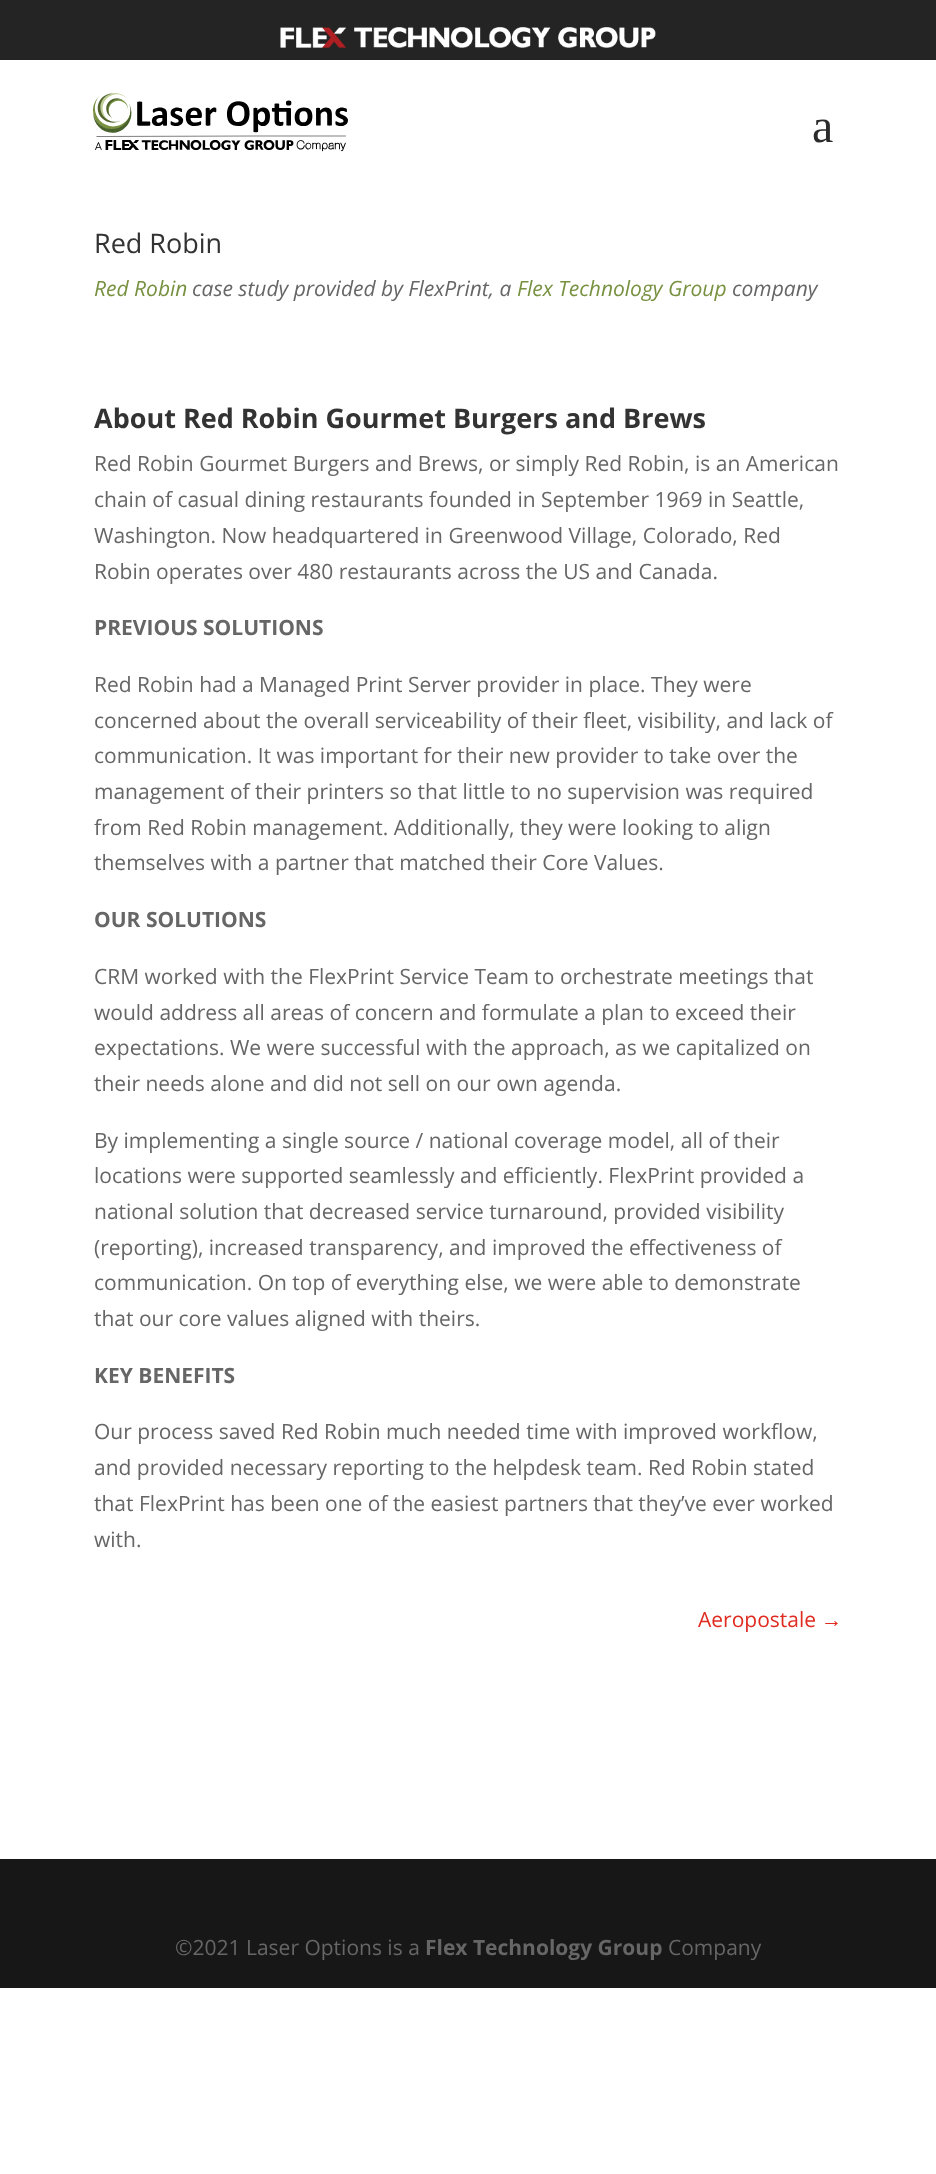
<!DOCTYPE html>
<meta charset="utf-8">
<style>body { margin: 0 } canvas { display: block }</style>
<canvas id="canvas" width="936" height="2174"></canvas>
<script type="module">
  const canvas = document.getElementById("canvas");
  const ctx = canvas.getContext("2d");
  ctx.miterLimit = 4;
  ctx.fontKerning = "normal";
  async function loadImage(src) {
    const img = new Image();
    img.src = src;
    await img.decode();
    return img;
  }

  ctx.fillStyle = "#ffffff";
  ctx.fillRect(0, 0, 936, 2174);
  ctx.fillStyle = "#242424";
  ctx.fillRect(0, 0, 936, 60);
  ctx.drawImage(await loadImage("img1.png"), 280, 27, 376, 21);
  ctx.drawImage(await loadImage("img2.png"), 93, 93, 255, 59);
  ctx.font = "48px Liberation Serif";
  ctx.fillStyle = "#2b2b2b";
  ctx.fillText("a", 812, 142);
  ctx.font = "27px Open Sans";
  ctx.fillStyle = "#333333";
  ctx.fillText("Red Robin", 94, 253);
  ctx.font = "italic 21px Open Sans";
  ctx.fillStyle = "#789141";
  ctx.fillText("Red Robin", 94, 296);
  ctx.fillStyle = "#666666";
  ctx.fillText("case study provided by FlexPrint, a", 192, 296);
  ctx.fillStyle = "#789141";
  ctx.fillText("Flex Technology Group", 517, 296);
  ctx.fillStyle = "#666666";
  ctx.fillText("company", 732, 296);
  ctx.font = "bold 27px Open Sans";
  ctx.fillStyle = "#333333";
  ctx.fillText("About Red Robin Gourmet Burgers and Brews", 94, 428);
  ctx.font = "21px Open Sans";
  ctx.fillStyle = "#666666";
  ctx.fillText("Red Robin Gourmet Burgers and Brews, or simply Red Robin, is an American", 94, 471);
  ctx.fillText("chain of casual dining restaurants founded in September 1969 in Seattle,", 94, 507);
  ctx.fillText("Washington. Now headquartered in Greenwood Village, Colorado, Red", 94, 543);
  ctx.fillText("Robin operates over 480 restaurants across the US and Canada.", 94, 579);
  ctx.font = "bold 21px Open Sans";
  ctx.fillText("PREVIOUS SOLUTIONS", 94, 635);
  ctx.font = "21px Open Sans";
  ctx.fillText("Red Robin had a Managed Print Server provider in place. They were", 94, 692);
  ctx.fillText("concerned about the overall serviceability of their fleet, visibility, and lack of", 94, 728);
  ctx.fillText("communication. It was important for their new provider to take over the", 94, 763);
  ctx.fillText("management of their printers so that little to no supervision was required", 94, 799);
  ctx.fillText("from Red Robin management. Additionally, they were looking to align", 94, 835);
  ctx.fillText("themselves with a partner that matched their Core Values.", 94, 870);
  ctx.font = "bold 21px Open Sans";
  ctx.fillText("OUR SOLUTIONS", 94, 927);
  ctx.font = "21px Open Sans";
  ctx.fillText("CRM worked with the FlexPrint Service Team to orchestrate meetings that", 94, 984);
  ctx.fillText("would address all areas of concern and formulate a plan to exceed their", 94, 1020);
  ctx.fillText("expectations. We were successful with the approach, as we capitalized on", 94, 1055);
  ctx.fillText("their needs alone and did not sell on our own agenda.", 94, 1091);
  ctx.fillText("By implementing a single source / national coverage model, all of their", 94, 1148);
  ctx.fillText("locations were supported seamlessly and efficiently. FlexPrint provided a", 94, 1183);
  ctx.fillText("national solution that decreased service turnaround, provided visibility", 94, 1219);
  ctx.fillText("(reporting), increased transparency, and improved the effectiveness of", 94, 1255);
  ctx.fillText("communication. On top of everything else, we were able to demonstrate", 94, 1290);
  ctx.fillText("that our core values aligned with theirs.", 94, 1326);
  ctx.font = "bold 21px Open Sans";
  ctx.fillText("KEY BENEFITS", 94, 1383);
  ctx.font = "21px Open Sans";
  ctx.fillText("Our process saved Red Robin much needed time with improved workflow,", 94, 1439);
  ctx.fillText("and provided necessary reporting to the helpdesk team. Red Robin stated", 94, 1475);
  ctx.fillText("that FlexPrint has been one of the easiest partners that they’ve ever worked", 94, 1511);
  ctx.fillText("with.", 94, 1547);
  ctx.fillStyle = "#e02b20";
  ctx.fillText("Aeropostale", 698, 1627);
  ctx.font = "21px Liberation Sans";
  ctx.fillText("→", 821, 1627);
  ctx.fillStyle = "#171717";
  ctx.fillRect(0, 1859, 936, 129);
  ctx.font = "21px Open Sans";
  ctx.fillStyle = "#666666";
  ctx.fillText("©2021 Laser Options is a", 175, 1955);
  ctx.font = "bold 21px Open Sans";
  ctx.fillText("Flex Technology Group", 425, 1955);
  ctx.font = "21px Open Sans";
  ctx.fillText("Company", 668, 1955);
</script>
